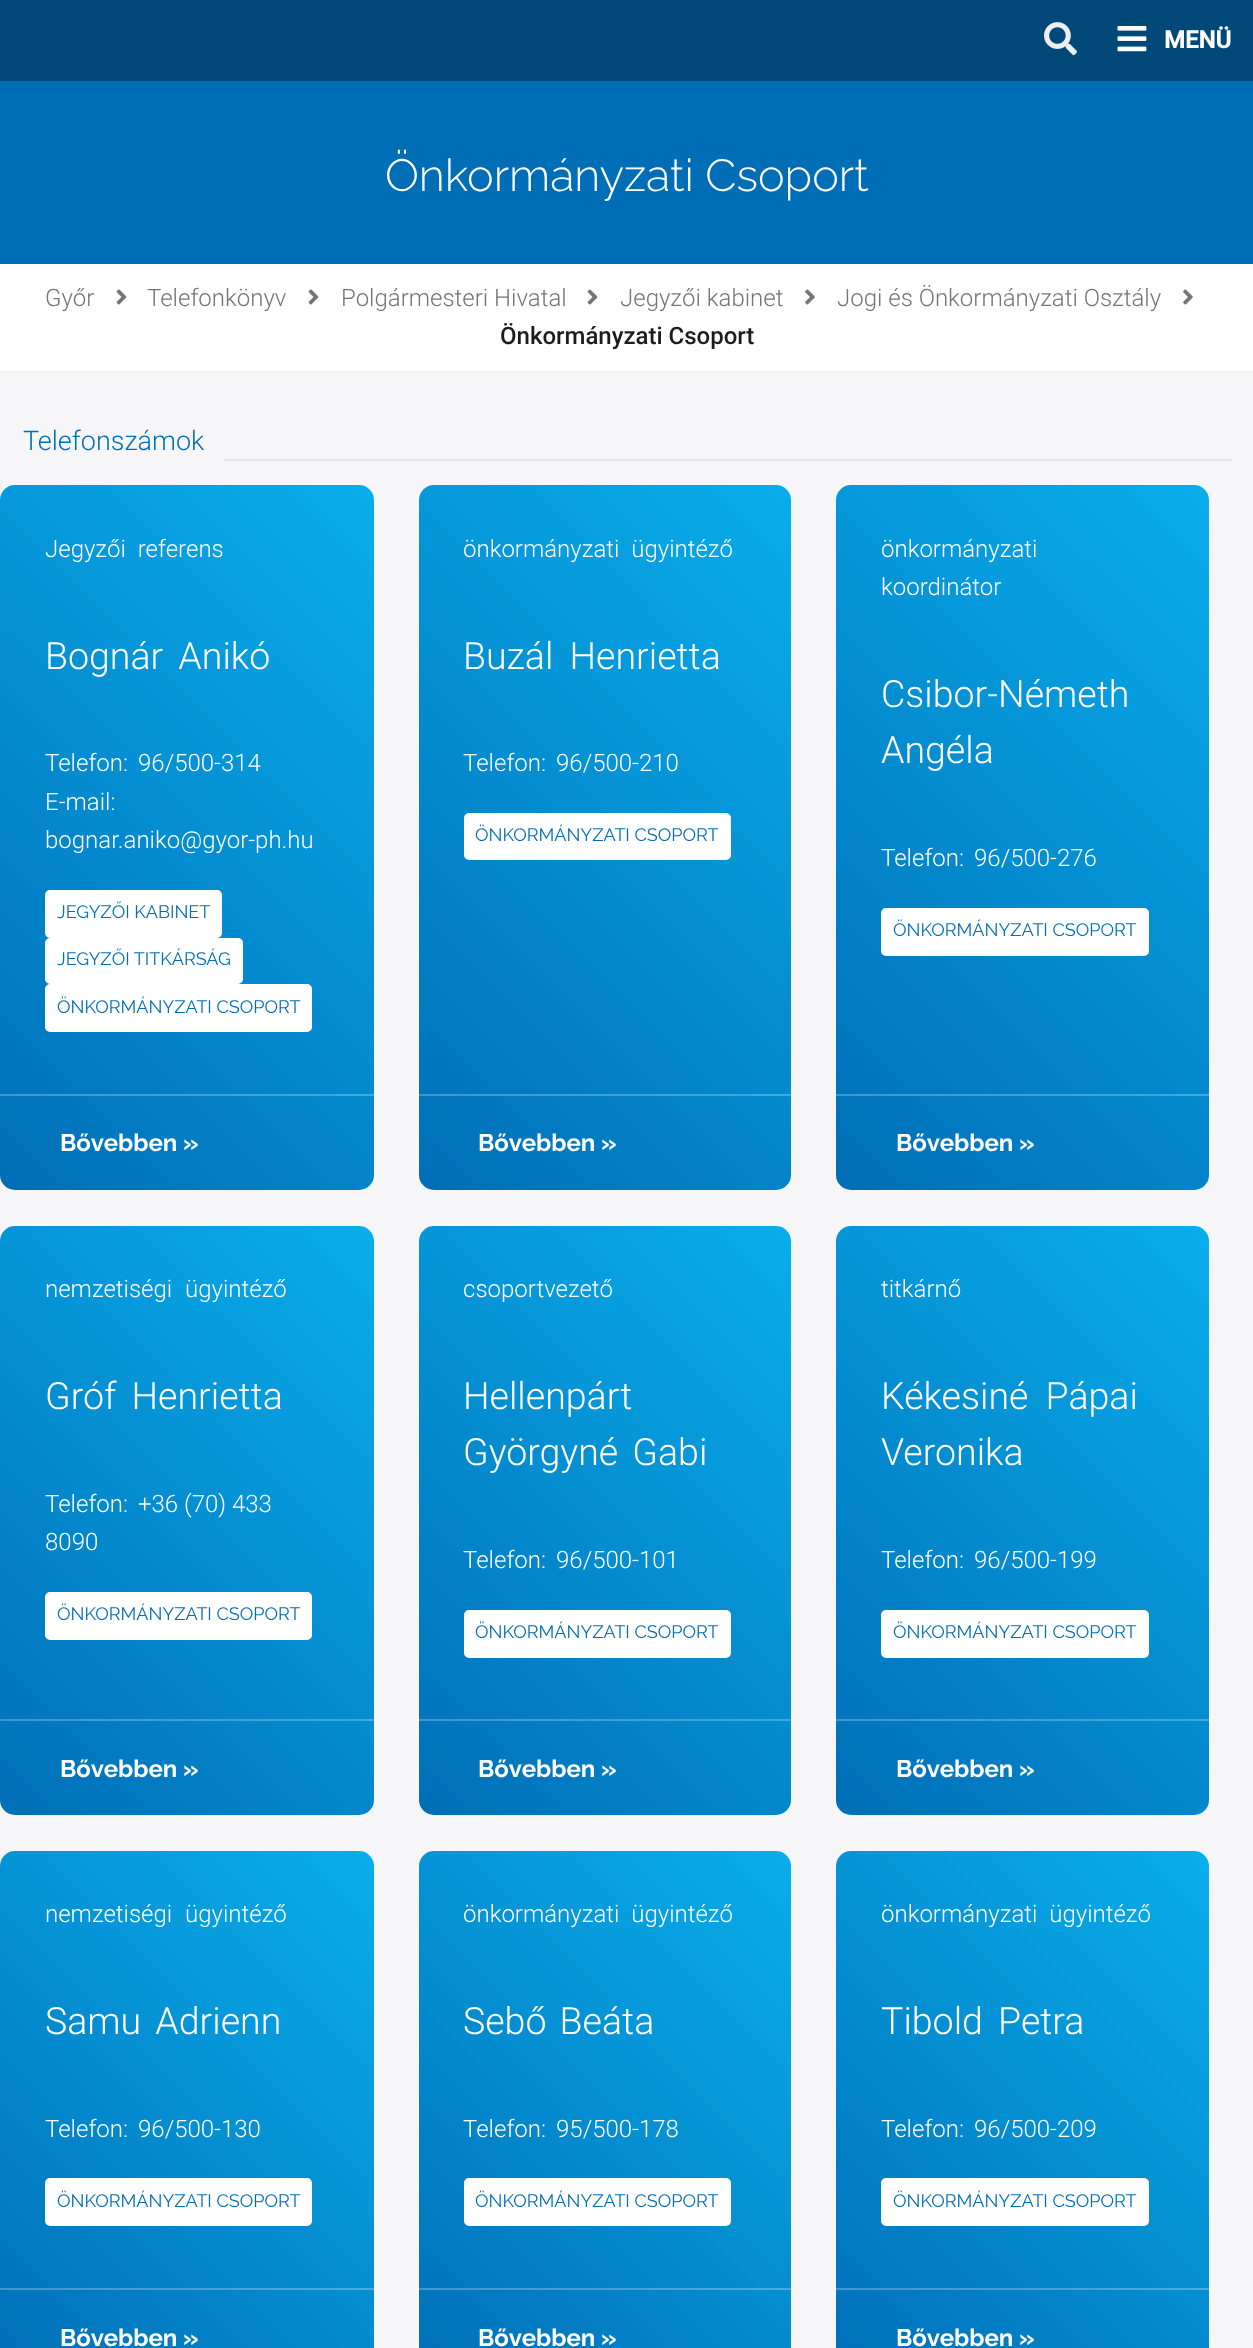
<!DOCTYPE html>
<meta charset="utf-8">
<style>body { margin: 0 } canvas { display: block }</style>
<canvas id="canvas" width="1253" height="2348"></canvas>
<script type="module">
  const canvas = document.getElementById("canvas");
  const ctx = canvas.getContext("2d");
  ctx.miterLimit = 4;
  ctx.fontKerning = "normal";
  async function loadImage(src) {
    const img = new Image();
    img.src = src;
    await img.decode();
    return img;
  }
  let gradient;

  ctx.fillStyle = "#f6f6f8";
  ctx.fillRect(0, 0, 1253, 2348);
  ctx.fillStyle = "#004877";
  ctx.fillRect(0, 0, 1253, 81);
  ctx.drawImage(await loadImage("img1.png"), 1044, 22, 33, 34);
  ctx.drawImage(await loadImage("img2.png"), 1117, 26, 30, 26);
  ctx.font = "bold 24px Roboto";
  ctx.fillStyle = "#ffffff";
  ctx.fillText("MENÜ", 1164, 48);
  ctx.fillStyle = "#006eb7";
  ctx.fillRect(0, 81, 1253, 183);
  ctx.font = "300 45px Raleway";
  ctx.fillStyle = "#ffffff";
  ctx.fillText("Önkormányzati Csoport", 385, 191);
  ctx.fillRect(0, 264, 1253, 107);
  ctx.fillStyle = "#f3f3f3";
  ctx.fillRect(0, 371, 1253, 2);
  ctx.font = "300 24px Roboto";
  ctx.fillStyle = "#757575";
  ctx.fillText("Győr", 45, 306);
  ctx.drawImage(await loadImage("img3.png"), 116, 289, 11, 16);
  ctx.fillText("Telefonkönyv", 147, 306);
  ctx.drawImage(await loadImage("img3.png"), 308, 289, 11, 16);
  ctx.fillText("Polgármesteri Hivatal", 341, 306);
  ctx.drawImage(await loadImage("img3.png"), 587, 289, 11, 16);
  ctx.fillText("Jegyzői kabinet", 620, 306);
  ctx.drawImage(await loadImage("img4.png"), 805, 289, 10, 16);
  ctx.fillText("Jogi és Önkormányzati Osztály", 837, 306);
  ctx.drawImage(await loadImage("img4.png"), 1183, 289, 10, 16);
  ctx.font = "500 24px Roboto";
  ctx.fillStyle = "#1c1c1c";
  ctx.fillText("Önkormányzati Csoport", 500, 344);
  ctx.font = "300 27px Roboto";
  ctx.fillStyle = "#006eb7";
  ctx.fillText("Telefonszámok", 23, 450);
  ctx.fillStyle = "#e5e5e5";
  ctx.fillRect(224, 459, 1008, 2);
  gradient = ctx.createLinearGradient(-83, 1107, 456, 567);
  gradient.addColorStop(0, "#006eb7");
  gradient.addColorStop(1, "#09aeec");
  ctx.fillStyle = gradient;
  ctx.beginPath();
  ctx.roundRect(0, 485, 374, 705, 15);
  ctx.fill();
  gradient = ctx.createLinearGradient(-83, 1107, 456, 567);
  gradient.addColorStop(0, "#4092c9");
  gradient.addColorStop(1, "#47c2f1");
  ctx.fillStyle = gradient;
  ctx.fillRect(0, 1094, 374, 2);
  ctx.wordSpacing = "6px";
  ctx.font = "300 24px Roboto";
  ctx.fillStyle = "#ffffff";
  ctx.fillText("Jegyzői referens", 45, 557);
  ctx.font = "300 37.5px Roboto";
  ctx.fillText("Bognár Anikó", 45, 669);
  ctx.wordSpacing = "0px";
  ctx.font = "300 24px Roboto";
  ctx.fillText("Telefon:", 45, 771);
  ctx.fillText("96/500-314", 138, 771);
  ctx.fillText("E-mail:", 45, 810);
  ctx.fillText("bognar.aniko@gyor-ph.hu", 45, 848);
  ctx.beginPath();
  ctx.roundRect(46, 891, 175, 46, 4);
  ctx.fill();
  ctx.strokeStyle = "#ffffff";
  ctx.lineWidth = 2;
  ctx.stroke();
  ctx.font = "18px Raleway";
  ctx.fillStyle = "#006eb7";
  ctx.fillText("JEGYZŐI KABINET", 57, 918);
  ctx.fillStyle = "#ffffff";
  ctx.beginPath();
  ctx.roundRect(46, 939, 196, 44, 4);
  ctx.fill();
  ctx.stroke();
  ctx.fillStyle = "#006eb7";
  ctx.fillText("JEGYZŐI TITKÁRSÁG", 57, 965);
  ctx.fillStyle = "#ffffff";
  ctx.beginPath();
  ctx.roundRect(46, 985, 265, 46, 4);
  ctx.fill();
  ctx.stroke();
  ctx.fillStyle = "#006eb7";
  ctx.fillText("ÖNKORMÁNYZATI CSOPORT", 57, 1013);
  ctx.font = "bold 24px Raleway";
  ctx.fillStyle = "#ffffff";
  ctx.fillText("Bővebben »", 60, 1151);
  gradient = ctx.createLinearGradient(335, 1106, 874, 568);
  gradient.addColorStop(0, "#006eb7");
  gradient.addColorStop(1, "#09aeec");
  ctx.fillStyle = gradient;
  ctx.beginPath();
  ctx.roundRect(419, 485, 372, 705, 15);
  ctx.fill();
  gradient = ctx.createLinearGradient(335, 1106, 874, 568);
  gradient.addColorStop(0, "#4092c9");
  gradient.addColorStop(1, "#47c2f1");
  ctx.fillStyle = gradient;
  ctx.fillRect(419, 1094, 372, 2);
  ctx.wordSpacing = "6px";
  ctx.font = "300 24px Roboto";
  ctx.fillStyle = "#ffffff";
  ctx.fillText("önkormányzati ügyintéző", 463, 557);
  ctx.wordSpacing = "7px";
  ctx.font = "300 37.5px Roboto";
  ctx.fillText("Buzál Henrietta", 463, 669);
  ctx.wordSpacing = "0px";
  ctx.font = "300 24px Roboto";
  ctx.fillText("Telefon:", 463, 771);
  ctx.fillText("96/500-210", 556, 771);
  ctx.beginPath();
  ctx.roundRect(465, 814, 265, 45, 4);
  ctx.fill();
  ctx.stroke();
  ctx.font = "18px Raleway";
  ctx.fillStyle = "#006eb7";
  ctx.fillText("ÖNKORMÁNYZATI CSOPORT", 475, 841);
  ctx.font = "bold 24px Raleway";
  ctx.fillStyle = "#ffffff";
  ctx.fillText("Bővebben »", 478, 1151);
  gradient = ctx.createLinearGradient(753, 1107, 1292, 567);
  gradient.addColorStop(0, "#006eb7");
  gradient.addColorStop(1, "#09aeec");
  ctx.fillStyle = gradient;
  ctx.beginPath();
  ctx.roundRect(836, 485, 373, 705, 15);
  ctx.fill();
  gradient = ctx.createLinearGradient(753, 1107, 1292, 567);
  gradient.addColorStop(0, "#4092c9");
  gradient.addColorStop(1, "#47c2f1");
  ctx.fillStyle = gradient;
  ctx.fillRect(836, 1094, 373, 2);
  ctx.font = "300 24px Roboto";
  ctx.fillStyle = "#ffffff";
  ctx.fillText("önkormányzati", 881, 557);
  ctx.fillText("koordinátor", 881, 595);
  ctx.font = "300 37.5px Roboto";
  ctx.fillText("Csibor-Németh", 881, 707);
  ctx.fillText("Angéla", 881, 763);
  ctx.font = "300 24px Roboto";
  ctx.fillText("Telefon:", 881, 866);
  ctx.fillText("96/500-276", 974, 866);
  ctx.beginPath();
  ctx.roundRect(882, 909, 266, 46, 4);
  ctx.fill();
  ctx.stroke();
  ctx.font = "18px Raleway";
  ctx.fillStyle = "#006eb7";
  ctx.fillText("ÖNKORMÁNYZATI CSOPORT", 893, 936);
  ctx.font = "bold 24px Raleway";
  ctx.fillStyle = "#ffffff";
  ctx.fillText("Bővebben »", 896, 1151);
  gradient = ctx.createLinearGradient(-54, 1761, 428, 1280);
  gradient.addColorStop(0, "#006eb7");
  gradient.addColorStop(1, "#09aeec");
  ctx.fillStyle = gradient;
  ctx.beginPath();
  ctx.roundRect(0, 1226, 374, 589, 15);
  ctx.fill();
  gradient = ctx.createLinearGradient(-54, 1761, 428, 1280);
  gradient.addColorStop(0, "#4092c9");
  gradient.addColorStop(1, "#47c2f1");
  ctx.fillStyle = gradient;
  ctx.fillRect(0, 1719, 374, 2);
  ctx.wordSpacing = "7px";
  ctx.font = "300 24px Roboto";
  ctx.fillStyle = "#ffffff";
  ctx.fillText("nemzetiségi ügyintéző", 45, 1297);
  ctx.wordSpacing = "6px";
  ctx.font = "300 37.5px Roboto";
  ctx.fillText("Gróf Henrietta", 45, 1409);
  ctx.wordSpacing = "0px";
  ctx.font = "300 24px Roboto";
  ctx.fillText("Telefon:", 45, 1512);
  ctx.fillText("+36 (70) 433", 138, 1512);
  ctx.fillText("8090", 45, 1550);
  ctx.beginPath();
  ctx.roundRect(46, 1593, 265, 46, 4);
  ctx.fill();
  ctx.stroke();
  ctx.font = "18px Raleway";
  ctx.fillStyle = "#006eb7";
  ctx.fillText("ÖNKORMÁNYZATI CSOPORT", 57, 1620);
  ctx.font = "bold 24px Raleway";
  ctx.fillStyle = "#ffffff";
  ctx.fillText("Bővebben »", 60, 1777);
  gradient = ctx.createLinearGradient(364, 1761, 845, 1280);
  gradient.addColorStop(0, "#006eb7");
  gradient.addColorStop(1, "#09aeec");
  ctx.fillStyle = gradient;
  ctx.beginPath();
  ctx.roundRect(419, 1226, 372, 589, 15);
  ctx.fill();
  gradient = ctx.createLinearGradient(364, 1761, 845, 1280);
  gradient.addColorStop(0, "#4092c9");
  gradient.addColorStop(1, "#47c2f1");
  ctx.fillStyle = gradient;
  ctx.fillRect(419, 1719, 372, 2);
  ctx.font = "300 24px Roboto";
  ctx.fillStyle = "#ffffff";
  ctx.fillText("csoportvezető", 463, 1297);
  ctx.font = "300 37.5px Roboto";
  ctx.fillText("Hellenpárt", 463, 1409);
  ctx.wordSpacing = "5px";
  ctx.fillText("Györgyné Gabi", 463, 1465);
  ctx.wordSpacing = "0px";
  ctx.font = "300 24px Roboto";
  ctx.fillText("Telefon:", 463, 1568);
  ctx.fillText("96/500-101", 556, 1568);
  ctx.beginPath();
  ctx.roundRect(465, 1611, 265, 46, 4);
  ctx.fill();
  ctx.stroke();
  ctx.font = "18px Raleway";
  ctx.fillStyle = "#006eb7";
  ctx.fillText("ÖNKORMÁNYZATI CSOPORT", 475, 1638);
  ctx.font = "bold 24px Raleway";
  ctx.fillStyle = "#ffffff";
  ctx.fillText("Bővebben »", 478, 1777);
  gradient = ctx.createLinearGradient(782, 1761, 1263, 1280);
  gradient.addColorStop(0, "#006eb7");
  gradient.addColorStop(1, "#09aeec");
  ctx.fillStyle = gradient;
  ctx.beginPath();
  ctx.roundRect(836, 1226, 373, 589, 15);
  ctx.fill();
  gradient = ctx.createLinearGradient(782, 1761, 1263, 1280);
  gradient.addColorStop(0, "#4092c9");
  gradient.addColorStop(1, "#47c2f1");
  ctx.fillStyle = gradient;
  ctx.fillRect(836, 1719, 373, 2);
  ctx.font = "300 24px Roboto";
  ctx.fillStyle = "#ffffff";
  ctx.fillText("titkárnő", 881, 1297);
  ctx.wordSpacing = "8px";
  ctx.font = "300 37.5px Roboto";
  ctx.fillText("Kékesiné Pápai", 881, 1409);
  ctx.wordSpacing = "0px";
  ctx.fillText("Veronika", 881, 1465);
  ctx.font = "300 24px Roboto";
  ctx.fillText("Telefon:", 881, 1568);
  ctx.fillText("96/500-199", 974, 1568);
  ctx.beginPath();
  ctx.roundRect(882, 1611, 266, 46, 4);
  ctx.fill();
  ctx.stroke();
  ctx.font = "18px Raleway";
  ctx.fillStyle = "#006eb7";
  ctx.fillText("ÖNKORMÁNYZATI CSOPORT", 893, 1638);
  ctx.font = "bold 24px Raleway";
  ctx.fillStyle = "#ffffff";
  ctx.fillText("Bővebben »", 896, 1777);
  gradient = ctx.createLinearGradient(-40, 2344, 413, 1891);
  gradient.addColorStop(0, "#006eb7");
  gradient.addColorStop(1, "#09aeec");
  ctx.fillStyle = gradient;
  ctx.beginPath();
  ctx.roundRect(0, 1851, 374, 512, 15);
  ctx.fill();
  gradient = ctx.createLinearGradient(-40, 2344, 413, 1891);
  gradient.addColorStop(0, "#4092c9");
  gradient.addColorStop(1, "#47c2f1");
  ctx.fillStyle = gradient;
  ctx.fillRect(0, 2288, 374, 2);
  ctx.wordSpacing = "7px";
  ctx.font = "300 24px Roboto";
  ctx.fillStyle = "#ffffff";
  ctx.fillText("nemzetiségi ügyintéző", 45, 1922);
  ctx.wordSpacing = "5px";
  ctx.font = "300 37.5px Roboto";
  ctx.fillText("Samu Adrienn", 45, 2034);
  ctx.wordSpacing = "0px";
  ctx.font = "300 24px Roboto";
  ctx.fillText("Telefon:", 45, 2137);
  ctx.fillText("96/500-130", 138, 2137);
  ctx.beginPath();
  ctx.roundRect(46, 2179, 265, 46, 4);
  ctx.fill();
  ctx.stroke();
  ctx.font = "18px Raleway";
  ctx.fillStyle = "#006eb7";
  ctx.fillText("ÖNKORMÁNYZATI CSOPORT", 57, 2207);
  ctx.font = "bold 24px Raleway";
  ctx.fillStyle = "#ffffff";
  ctx.fillText("Bővebben »", 60, 2346);
  gradient = ctx.createLinearGradient(378, 2343, 831, 1891);
  gradient.addColorStop(0, "#006eb7");
  gradient.addColorStop(1, "#09aeec");
  ctx.fillStyle = gradient;
  ctx.beginPath();
  ctx.roundRect(419, 1851, 372, 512, 15);
  ctx.fill();
  gradient = ctx.createLinearGradient(378, 2343, 831, 1891);
  gradient.addColorStop(0, "#4092c9");
  gradient.addColorStop(1, "#47c2f1");
  ctx.fillStyle = gradient;
  ctx.fillRect(419, 2288, 372, 2);
  ctx.wordSpacing = "6px";
  ctx.font = "300 24px Roboto";
  ctx.fillStyle = "#ffffff";
  ctx.fillText("önkormányzati ügyintéző", 463, 1922);
  ctx.wordSpacing = "4px";
  ctx.font = "300 37.5px Roboto";
  ctx.fillText("Sebő Beáta", 463, 2034);
  ctx.wordSpacing = "0px";
  ctx.font = "300 24px Roboto";
  ctx.fillText("Telefon:", 463, 2137);
  ctx.fillText("95/500-178", 556, 2137);
  ctx.beginPath();
  ctx.roundRect(465, 2179, 265, 46, 4);
  ctx.fill();
  ctx.stroke();
  ctx.font = "18px Raleway";
  ctx.fillStyle = "#006eb7";
  ctx.fillText("ÖNKORMÁNYZATI CSOPORT", 475, 2207);
  ctx.font = "bold 24px Raleway";
  ctx.fillStyle = "#ffffff";
  ctx.fillText("Bővebben »", 478, 2346);
  gradient = ctx.createLinearGradient(796, 2344, 1249, 1891);
  gradient.addColorStop(0, "#006eb7");
  gradient.addColorStop(1, "#09aeec");
  ctx.fillStyle = gradient;
  ctx.beginPath();
  ctx.roundRect(836, 1851, 373, 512, 15);
  ctx.fill();
  gradient = ctx.createLinearGradient(796, 2344, 1249, 1891);
  gradient.addColorStop(0, "#4092c9");
  gradient.addColorStop(1, "#47c2f1");
  ctx.fillStyle = gradient;
  ctx.fillRect(836, 2288, 373, 2);
  ctx.wordSpacing = "6px";
  ctx.font = "300 24px Roboto";
  ctx.fillStyle = "#ffffff";
  ctx.fillText("önkormányzati ügyintéző", 881, 1922);
  ctx.font = "300 37.5px Roboto";
  ctx.fillText("Tibold Petra", 881, 2034);
  ctx.wordSpacing = "0px";
  ctx.font = "300 24px Roboto";
  ctx.fillText("Telefon:", 881, 2137);
  ctx.fillText("96/500-209", 974, 2137);
  ctx.beginPath();
  ctx.roundRect(882, 2179, 266, 46, 4);
  ctx.fill();
  ctx.stroke();
  ctx.font = "18px Raleway";
  ctx.fillStyle = "#006eb7";
  ctx.fillText("ÖNKORMÁNYZATI CSOPORT", 893, 2207);
  ctx.font = "bold 24px Raleway";
  ctx.fillStyle = "#ffffff";
  ctx.fillText("Bővebben »", 896, 2346);
</script>
